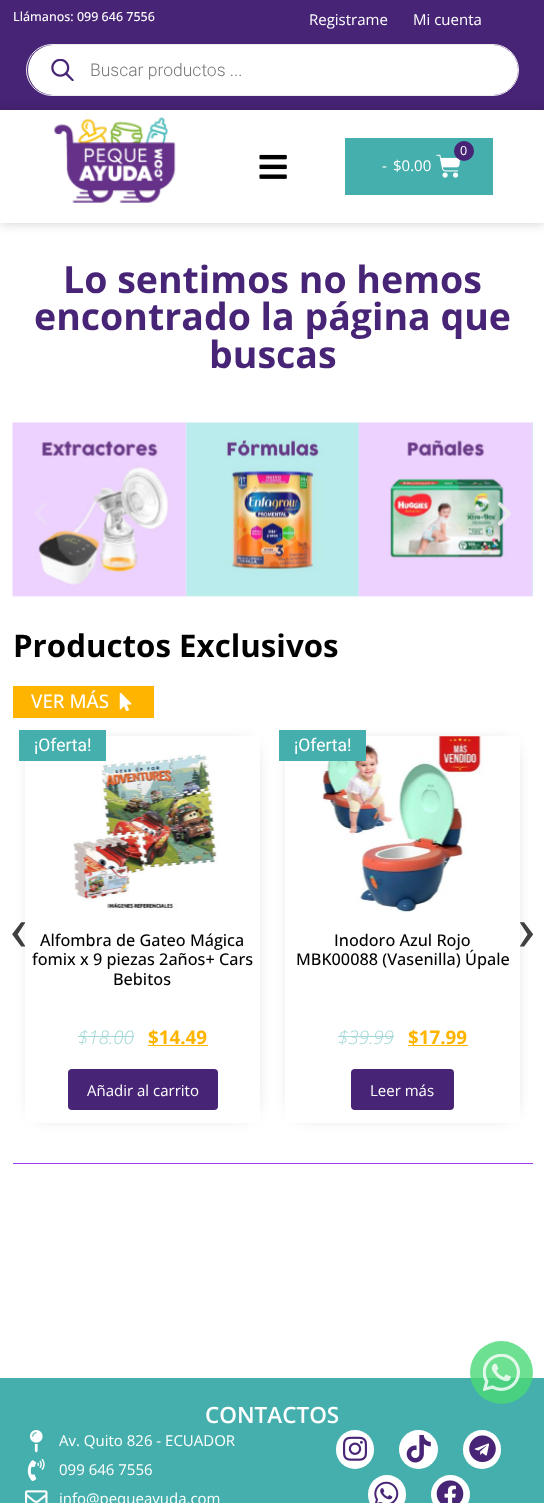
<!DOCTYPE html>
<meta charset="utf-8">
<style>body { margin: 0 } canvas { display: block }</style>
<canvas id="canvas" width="544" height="1503"></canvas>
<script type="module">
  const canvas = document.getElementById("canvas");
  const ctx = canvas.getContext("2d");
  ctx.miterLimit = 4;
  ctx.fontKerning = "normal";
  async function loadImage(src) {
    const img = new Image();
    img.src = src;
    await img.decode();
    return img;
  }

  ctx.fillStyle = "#ffffff";
  ctx.fillRect(0, 0, 544, 1503);
  ctx.fillStyle = "#472476";
  ctx.fillRect(0, 0, 544, 110);
  ctx.font = "500 12.5px Open Sans";
  ctx.fillStyle = "#ffffff";
  ctx.fillText("Llámanos: 099 646 7556", 13, 21);
  ctx.font = "15px Open Sans";
  ctx.fillText("Registrame", 309, 25);
  ctx.fillText("Mi cuenta", 413, 25);
  ctx.beginPath();
  ctx.roundRect(26.5, 44.5, 492, 51, 25.5);
  ctx.strokeStyle = "#eeeeee";
  ctx.stroke();
  ctx.beginPath();
  ctx.roundRect(28, 45, 490, 50, 25);
  ctx.fill();
  ctx.drawImage(await loadImage("img1.png"), 51, 59, 23, 22);
  ctx.font = "300 17.5px Roboto";
  ctx.fillStyle = "#777777";
  ctx.fillText("Buscar productos ...", 90, 76);
  ctx.save();
  ctx.beginPath();
  ctx.moveTo(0, 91);
  ctx.lineTo(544, 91);
  ctx.lineTo(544, 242);
  ctx.lineTo(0, 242);
  ctx.closePath();
  ctx.moveTo(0, 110);
  ctx.lineTo(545, 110);
  ctx.lineTo(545, 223);
  ctx.lineTo(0, 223);
  ctx.closePath();
  ctx.clip("evenodd");
  ctx.fillStyle = "rgba(0, 0, 0, 0.2)";
  ctx.filter = "blur(6px)";
  ctx.beginPath();
  ctx.rect(0, 110, 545, 113);
  ctx.fill();
  ctx.filter = "none";
  ctx.restore();
  ctx.drawImage(await loadImage("img2.png"), 53, 117, 123, 86);
  ctx.drawImage(await loadImage("img3.png"), 259, 154, 28, 25);
  ctx.fillStyle = "#45afad";
  ctx.fillRect(345, 138, 148, 57);
  ctx.drawImage(await loadImage("img4.png"), 436, 154, 24, 24);
  ctx.fillStyle = "#472476";
  ctx.beginPath();
  ctx.arc(464, 151, 10, 0, Math.PI * 2);
  ctx.fill();
  ctx.font = "12.5px Open Sans";
  ctx.fillStyle = "#ffffff";
  ctx.fillText("0", 460, 155);
  ctx.font = "15px Open Sans";
  ctx.fillText("-", 382, 171);
  ctx.fillText("$0.00", 393, 171);
  ctx.font = "bold 37.5px Open Sans";
  ctx.fillStyle = "#472476";
  ctx.fillText("Lo sentimos no hemos", 63, 293);
  ctx.fillText("encontrado la página que", 34, 330);
  ctx.fillText("buscas", 209, 368);
  ctx.drawImage(await loadImage("img5.png"), 12, 422, 175, 175);
  ctx.drawImage(await loadImage("img6.png"), 186, 422, 173, 175);
  ctx.drawImage(await loadImage("img7.png"), 358, 422, 175, 175);
  ctx.drawImage(await loadImage("img8.png"), 532, 422, 1, 174);
  ctx.drawImage(await loadImage("img9.png"), 34, 502, 13, 23);
  ctx.drawImage(await loadImage("img10.png"), 497, 502, 14, 24);
  ctx.font = "bold 31.25px Open Sans";
  ctx.fillStyle = "#000000";
  ctx.fillText("Productos Exclusivos", 13, 657);
  ctx.fillStyle = "#ffb400";
  ctx.fillRect(13, 686, 141, 32);
  ctx.font = "500 18.75px Open Sans";
  ctx.fillStyle = "#ffffff";
  ctx.fillText("VER MÁS", 31, 708);
  ctx.drawImage(await loadImage("img11.png"), 119, 693, 13, 18);
  ctx.font = "62px Roboto";
  ctx.fillStyle = "#404040";
  ctx.fillText("‹", 9, 951);
  ctx.fillStyle = "rgba(0, 0, 0, 0.5)";
  ctx.filter = "blur(9.5px)";
  ctx.beginPath();
  ctx.rect(38, 749, 210, 361);
  ctx.fill();
  ctx.filter = "none";
  ctx.fillStyle = "#ffffff";
  ctx.fillRect(25, 736, 235, 387);
  ctx.drawImage(await loadImage("img12.png"), 73, 754, 146, 157);
  ctx.fillStyle = "#45afad";
  ctx.fillRect(19, 730, 87, 31);
  ctx.font = "17.5px Roboto";
  ctx.fillStyle = "#ffffff";
  ctx.fillText("¡Oferta!", 34, 751);
  ctx.font = "500 16.25px Open Sans";
  ctx.fillStyle = "#000000";
  ctx.fillText("Alfombra de Gateo Mágica", 40, 946);
  ctx.fillText("fomix x 9 piezas 2años+ Cars", 32, 965);
  ctx.fillText("Bebitos", 113, 985);
  ctx.font = "italic 300 18.75px Open Sans";
  ctx.fillStyle = "#a2d7d6";
  ctx.fillText("$18.00", 78, 1044);
  ctx.fillRect(78, 1036, 56, 1);
  ctx.fillStyle = "#ffb400";
  ctx.fillRect(148, 1045, 60, 1);
  ctx.font = "bold 18.75px Open Sans";
  ctx.fillText("$14.49", 148, 1044);
  ctx.fillStyle = "#472476";
  ctx.beginPath();
  ctx.roundRect(68, 1069, 150, 41, 4);
  ctx.fill();
  ctx.font = "15px Open Sans";
  ctx.fillStyle = "#ffffff";
  ctx.fillText("Añadir al carrito", 87, 1096);
  ctx.fillStyle = "rgba(0, 0, 0, 0.5)";
  ctx.filter = "blur(9.5px)";
  ctx.beginPath();
  ctx.rect(298, 749, 210, 361);
  ctx.fill();
  ctx.filter = "none";
  ctx.fillStyle = "#ffffff";
  ctx.fillRect(285, 736, 235, 387);
  ctx.drawImage(await loadImage("img13.png"), 322, 736, 162, 178);
  ctx.fillStyle = "#45afad";
  ctx.fillRect(279, 730, 87, 31);
  ctx.font = "17.5px Roboto";
  ctx.fillStyle = "#ffffff";
  ctx.fillText("¡Oferta!", 294, 751);
  ctx.font = "500 16.25px Open Sans";
  ctx.fillStyle = "#000000";
  ctx.fillText("Inodoro Azul Rojo", 334, 946);
  ctx.fillText("MBK00088 (Vasenilla) Úpale", 296, 965);
  ctx.font = "italic 300 18.75px Open Sans";
  ctx.fillStyle = "#a2d7d6";
  ctx.fillText("$39.99", 338, 1044);
  ctx.fillRect(338, 1036, 56, 1);
  ctx.fillStyle = "#ffb400";
  ctx.fillRect(408, 1045, 60, 1);
  ctx.font = "bold 18.75px Open Sans";
  ctx.fillText("$17.99", 408, 1044);
  ctx.fillStyle = "#472476";
  ctx.beginPath();
  ctx.roundRect(351, 1069, 103, 41, 4);
  ctx.fill();
  ctx.font = "15px Open Sans";
  ctx.fillStyle = "#ffffff";
  ctx.fillText("Leer más", 370, 1096);
  ctx.font = "62px Roboto";
  ctx.fillStyle = "#404040";
  ctx.fillText("›", 517, 951);
  ctx.fillStyle = "#45afad";
  ctx.fillRect(0, 1378, 544, 125);
  ctx.fillStyle = "rgba(74, 216, 118, 0.8)";
  ctx.beginPath();
  ctx.arc(501.5, 1372.5, 31.5, 0, Math.PI * 2);
  ctx.fill();
  ctx.drawImage(await loadImage("img14.png"), 483, 1354, 37, 37);
  ctx.fillStyle = "#9c3beb";
  ctx.fillRect(13, 1163, 520, 1);
  ctx.font = "600 22.5px Open Sans";
  ctx.fillStyle = "#ffffff";
  ctx.fillText("CONTACTOS", 205, 1423);
  ctx.drawImage(await loadImage("img15.png"), 29, 1430, 14, 23);
  ctx.font = "15px Open Sans";
  ctx.fillText("Av. Quito 826 - ECUADOR", 59, 1446);
  ctx.drawImage(await loadImage("img16.png"), 27, 1459, 18, 22);
  ctx.fillText("099 646 7556", 59, 1475);
  ctx.drawImage(await loadImage("img17.png"), 25, 1490, 23, 13);
  ctx.fillText("info@pequeayuda.com", 59, 1504);
  ctx.beginPath();
  ctx.roundRect(336, 1430, 38, 39, 19);
  ctx.fill();
  ctx.drawImage(await loadImage("img18.png"), 342, 1436, 26, 25);
  ctx.beginPath();
  ctx.arc(418.5, 1449.5, 19.5, 0, Math.PI * 2);
  ctx.fill();
  ctx.drawImage(await loadImage("img19.png"), 406, 1435, 25, 28);
  ctx.beginPath();
  ctx.roundRect(463, 1430, 38, 39, 19);
  ctx.fill();
  ctx.drawImage(await loadImage("img20.png"), 469, 1435, 27, 28);
  ctx.beginPath();
  ctx.roundRect(368, 1475, 38, 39, 19);
  ctx.fill();
  ctx.drawImage(await loadImage("img21.png"), 374, 1481, 25, 22);
  ctx.beginPath();
  ctx.arc(450.5, 1494.5, 19.5, 0, Math.PI * 2);
  ctx.fill();
  ctx.drawImage(await loadImage("img22.png"), 436, 1480, 28, 23);
</script>
